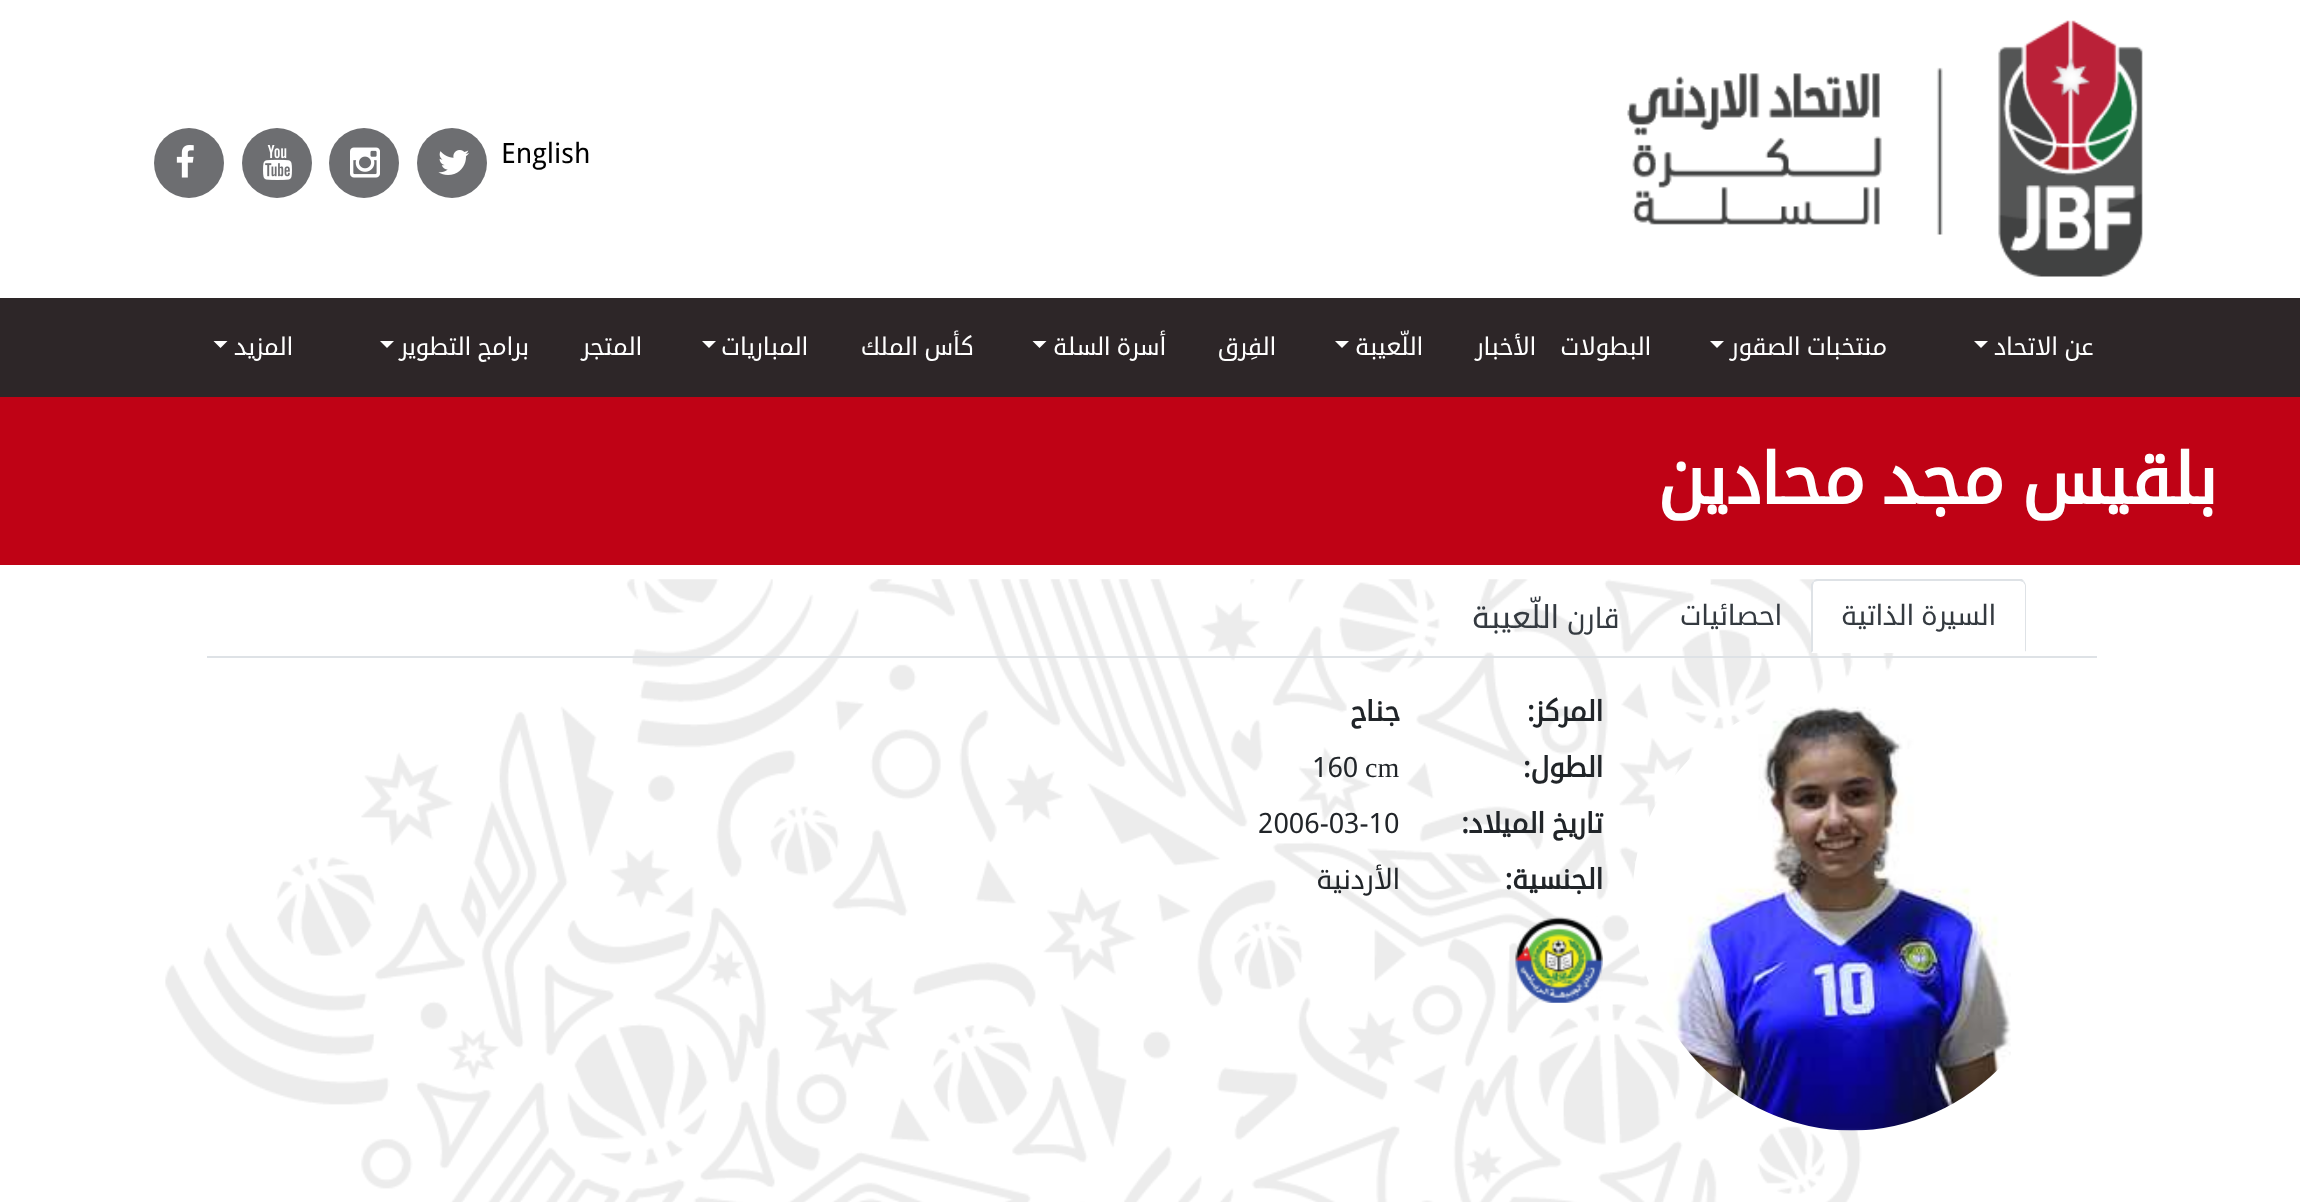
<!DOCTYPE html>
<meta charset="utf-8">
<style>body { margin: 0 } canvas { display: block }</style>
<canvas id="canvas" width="2300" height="1202"></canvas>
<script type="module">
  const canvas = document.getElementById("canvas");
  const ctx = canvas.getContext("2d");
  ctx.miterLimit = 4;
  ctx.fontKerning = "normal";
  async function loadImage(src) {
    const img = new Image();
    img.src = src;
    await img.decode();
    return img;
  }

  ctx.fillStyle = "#ffffff";
  ctx.fillRect(0, 0, 2300, 1202);
  ctx.drawImage(await loadImage("img1.png"), 1627, 20, 516, 257);
  ctx.font = "28px Droid Sans";
  ctx.fillStyle = "#000000";
  ctx.fillText("English", 501, 163);
  ctx.fillStyle = "#6d6e71";
  ctx.beginPath();
  ctx.arc(452, 163, 35, 0, Math.PI * 2);
  ctx.fill();
  ctx.drawImage(await loadImage("img2.png"), 438, 150, 31, 25);
  ctx.beginPath();
  ctx.arc(364, 163, 35, 0, Math.PI * 2);
  ctx.fill();
  ctx.drawImage(await loadImage("img3.png"), 350, 147, 30, 31);
  ctx.beginPath();
  ctx.arc(277, 163, 35, 0, Math.PI * 2);
  ctx.fill();
  ctx.drawImage(await loadImage("img4.png"), 263, 145, 29, 35);
  ctx.beginPath();
  ctx.arc(189, 163, 35, 0, Math.PI * 2);
  ctx.fill();
  ctx.drawImage(await loadImage("img5.png"), 176, 145, 18, 33);
  ctx.fillStyle = "#2d2628";
  ctx.fillRect(0, 298, 2300, 99);
  ctx.direction = "rtl";
  ctx.font = "24.5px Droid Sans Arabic";
  ctx.fillStyle = "#ffffff";
  ctx.fillText("عن الاتحاد", 2094, 355);
  ctx.beginPath();
  ctx.moveTo(1974, 341);
  ctx.lineTo(1988, 341);
  ctx.lineTo(1981, 348);
  ctx.closePath();
  ctx.fill();
  ctx.fillText("منتخبات الصقور", 1887, 355);
  ctx.beginPath();
  ctx.moveTo(1710, 341);
  ctx.lineTo(1724, 341);
  ctx.lineTo(1717, 348);
  ctx.closePath();
  ctx.fill();
  ctx.fillText("البطولات", 1651, 355);
  ctx.fillText("الأخبار", 1536, 355);
  ctx.fillText("اللّعيبة", 1423, 355);
  ctx.beginPath();
  ctx.moveTo(1335, 341);
  ctx.lineTo(1349, 341);
  ctx.lineTo(1342, 348);
  ctx.closePath();
  ctx.fill();
  ctx.fillText("الفِرق", 1276, 355);
  ctx.fillText("أسرة السلة", 1166, 355);
  ctx.beginPath();
  ctx.moveTo(1032.5, 341);
  ctx.lineTo(1046.5, 341);
  ctx.lineTo(1039.5, 348);
  ctx.closePath();
  ctx.fill();
  ctx.fillText("كأس الملك", 974, 355);
  ctx.fillText("المباريات", 808, 355);
  ctx.beginPath();
  ctx.moveTo(702, 341);
  ctx.lineTo(716, 341);
  ctx.lineTo(709, 348);
  ctx.closePath();
  ctx.fill();
  ctx.fillText("المتجر", 642, 355);
  ctx.fillText("برامج التطوير", 529, 355);
  ctx.beginPath();
  ctx.moveTo(380, 341);
  ctx.lineTo(394, 341);
  ctx.lineTo(387, 348);
  ctx.closePath();
  ctx.fill();
  ctx.fillText("المزيد", 293, 355);
  ctx.beginPath();
  ctx.moveTo(213.5, 341);
  ctx.lineTo(227.5, 341);
  ctx.lineTo(220.5, 348);
  ctx.closePath();
  ctx.fill();
  ctx.fillStyle = "#bf0215";
  ctx.fillRect(0, 397, 2300, 168);
  ctx.font = "bold 70px Droid Sans Arabic";
  ctx.fillStyle = "#ffffff";
  ctx.fillText("بلقيس مجد محادين", 2217, 504);
  ctx.drawImage(await loadImage("img6.png"), 165, 579, 1729, 623);
  ctx.fillStyle = "#dee2e6";
  ctx.fillRect(207, 656, 1890, 2);
  ctx.fillStyle = "#ffffff";
  ctx.beginPath();
  ctx.roundRect(1811, 579, 216, 74, [7, 7, 0, 0]);
  ctx.fill();
  ctx.fillStyle = "#dee2e6";
  ctx.beginPath();
  ctx.moveTo(1818, 581);
  ctx.bezierCurveTo(1816, 581, 1815, 582, 1814, 582);
  ctx.lineTo(1813, 581);
  ctx.lineTo(1816, 579);
  ctx.lineTo(2022, 579);
  ctx.lineTo(2024, 581);
  ctx.lineTo(2023, 582);
  ctx.lineTo(2020, 581);
  ctx.closePath();
  ctx.fill();
  ctx.beginPath();
  ctx.moveTo(2024, 581);
  ctx.bezierCurveTo(2025, 583, 2026, 584, 2026, 586);
  ctx.lineTo(2026, 652);
  ctx.lineTo(2025, 651);
  ctx.lineTo(2025, 585);
  ctx.lineTo(2023, 582);
  ctx.closePath();
  ctx.fill();
  ctx.fillStyle = "#ffffff";
  ctx.beginPath();
  ctx.moveTo(2026, 652);
  ctx.lineTo(2026, 653);
  ctx.lineTo(1811, 653);
  ctx.lineTo(1813, 651);
  ctx.lineTo(2025, 651);
  ctx.closePath();
  ctx.fill();
  ctx.fillStyle = "#dee2e6";
  ctx.beginPath();
  ctx.moveTo(1811, 653);
  ctx.lineTo(1811, 584);
  ctx.lineTo(1813, 581);
  ctx.lineTo(1814, 582);
  ctx.bezierCurveTo(1814, 583, 1813, 584, 1813, 586);
  ctx.lineTo(1813, 651);
  ctx.closePath();
  ctx.fill();
  ctx.font = "28px Droid Sans Arabic";
  ctx.fillStyle = "#343a40";
  ctx.fillText("السيرة الذاتية", 1996, 625);
  ctx.fillText("احصائيات", 1782, 625);
  ctx.fillText("قارن", 1620, 628);
  ctx.font = "31.5px Droid Sans Arabic";
  ctx.fillText("اللّعيبة", 1559, 628);
  ctx.drawImage(await loadImage("img7.png"), 1633, 706, 378, 425);
  ctx.font = "bold 28px Droid Sans Arabic";
  ctx.fillStyle = "#212529";
  ctx.fillText("المركز:", 1603, 721);
  ctx.fillText("جناح", 1400, 721);
  ctx.fillText("الطول:", 1603, 777);
  ctx.direction = "ltr";
  ctx.font = "28px Liberation Serif";
  ctx.fillText("cm", 1365, 777);
  ctx.font = "28px Droid Sans Arabic";
  ctx.fillText("160", 1312, 777);
  ctx.direction = "rtl";
  ctx.font = "bold 28px Droid Sans Arabic";
  ctx.fillText("تاريخ الميلاد:", 1603, 833);
  ctx.direction = "ltr";
  ctx.font = "28px Droid Sans Arabic";
  ctx.fillText("2006-03-10", 1258, 833);
  ctx.direction = "rtl";
  ctx.font = "bold 28px Droid Sans Arabic";
  ctx.fillText("الجنسية:", 1603, 889);
  ctx.font = "28px Droid Sans Arabic";
  ctx.fillText("الأردنية", 1400, 889);
  ctx.drawImage(await loadImage("img8.png"), 1515, 916, 88, 87);
</script>
